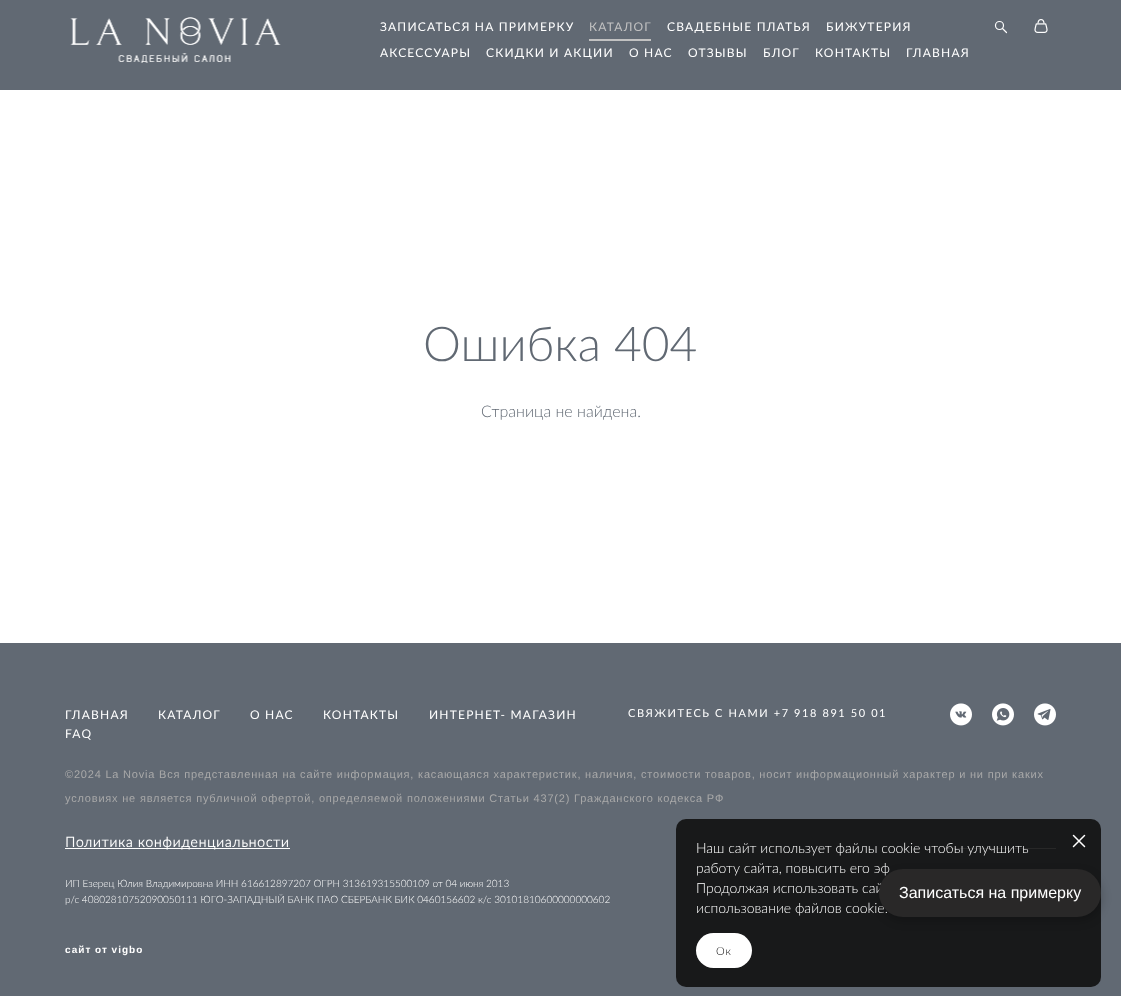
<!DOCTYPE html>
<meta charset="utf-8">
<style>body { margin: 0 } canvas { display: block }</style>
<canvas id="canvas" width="1121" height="1007"></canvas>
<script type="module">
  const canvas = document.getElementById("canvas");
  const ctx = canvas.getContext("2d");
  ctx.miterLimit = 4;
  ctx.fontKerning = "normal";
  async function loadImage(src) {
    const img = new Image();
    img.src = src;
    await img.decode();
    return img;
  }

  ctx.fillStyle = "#ffffff";
  ctx.fillRect(0, 0, 1121, 1007);
  ctx.fillStyle = "#616973";
  ctx.fillRect(0, 0, 1121, 90);
  ctx.drawImage(await loadImage("img1.png"), 70, 17, 211, 46);
  ctx.letterSpacing = "1.2px";
  ctx.font = "12px Lato";
  ctx.fillStyle = "#ffffff";
  ctx.fillText("ЗАПИСАТЬСЯ НА ПРИМЕРКУ", 380, 31);
  ctx.fillStyle = "#c2c2c2";
  ctx.fillText("КАТАЛОГ", 589, 31);
  ctx.fillRect(589, 39, 62, 2);
  ctx.fillStyle = "#ffffff";
  ctx.fillText("СВАДЕБНЫЕ ПЛАТЬЯ", 667, 31);
  ctx.fillText("БИЖУТЕРИЯ", 826, 31);
  ctx.fillText("АКСЕССУАРЫ", 380, 57);
  ctx.fillText("СКИДКИ И АКЦИИ", 486, 57);
  ctx.fillText("О НАС", 629, 57);
  ctx.fillText("ОТЗЫВЫ", 688, 57);
  ctx.fillText("БЛОГ", 763, 57);
  ctx.fillText("КОНТАКТЫ", 815, 57);
  ctx.fillText("ГЛАВНАЯ", 906, 57);
  ctx.beginPath();
  ctx.arc(999.5, 25.5, 4, 0, Math.PI * 2);
  ctx.strokeStyle = "#ffffff";
  ctx.lineWidth = 1.2;
  ctx.stroke();
  ctx.beginPath();
  ctx.moveTo(1002.5, 28.5);
  ctx.lineTo(1006.5, 32.5);
  ctx.lineCap = "round";
  ctx.lineJoin = "round";
  ctx.stroke();
  ctx.drawImage(await loadImage("img2.png"), 1034, 19, 14, 14);
  ctx.letterSpacing = "0px";
  ctx.font = "300 48px Lato";
  ctx.fillStyle = "#616973";
  ctx.fillText("Ошибка 404", 423, 361);
  ctx.font = "300 16px Lato";
  ctx.fillText("Страница не найдена.", 481, 417);
  ctx.fillRect(0, 643, 1121, 353);
  ctx.letterSpacing = "1.2px";
  ctx.font = "12px Lato";
  ctx.fillStyle = "#ffffff";
  ctx.fillText("ГЛАВНАЯ", 65, 719);
  ctx.fillText("КАТАЛОГ", 158, 719);
  ctx.fillText("О НАС", 250, 719);
  ctx.fillText("КОНТАКТЫ", 323, 719);
  ctx.fillText("ИНТЕРНЕТ- МАГАЗИН", 429, 719);
  ctx.fillText("FAQ", 65, 738);
  ctx.letterSpacing = "1.6px";
  ctx.font = "11px Lato";
  ctx.fillText("СВЯЖИТЕСЬ С НАМИ +7 918 891 50 01", 628, 717);
  ctx.drawImage(await loadImage("img3.png"), 950, 703, 22, 23);
  ctx.drawImage(await loadImage("img4.png"), 992, 703, 22, 23);
  ctx.drawImage(await loadImage("img5.png"), 1034, 703, 22, 23);
  ctx.letterSpacing = "0.8px";
  ctx.font = "11px Liberation Sans";
  ctx.fillStyle = "#a9a9a9";
  ctx.fillText("©2024 La Novia Вся представленная на сайте информация, касающаяся характеристик, наличия, стоимости товаров, носит информационный характер и ни при каких", 65, 778);
  ctx.fillText("условиях не является публичной офертой, определяемой положениями Статьи 437(2) Гражданского кодекса РФ", 65, 802);
  ctx.fillStyle = "#ffffff";
  ctx.fillRect(65, 848, 225, 1);
  ctx.font = "bold 14px Lato";
  ctx.fillText("Политика конфиденциальности", 65, 847);
  ctx.fillRect(944, 848, 112, 1);
  ctx.letterSpacing = "0px";
  ctx.font = "300 10px Lato";
  ctx.fillText("ИП Езерец Юлия Владимировна ИНН 616612897207 ОГРН 313619315500109 от 04 июня 2013", 65, 887);
  ctx.fillText("р/с 40802810752090050111 ЮГО-ЗАПАДНЫЙ БАНК ПАО СБЕРБАНК БИК 0460156602 к/с 30101810600000000602", 65, 903);
  ctx.letterSpacing = "1px";
  ctx.font = "bold 10px Liberation Sans";
  ctx.fillText("сайт от vigbo", 65, 953);
  ctx.fillStyle = "rgba(17, 17, 17, 0.9)";
  ctx.beginPath();
  ctx.roundRect(676, 819, 425, 168, 10);
  ctx.fill();
  ctx.letterSpacing = "0px";
  ctx.font = "300 14px Lato";
  ctx.fillStyle = "#ffffff";
  ctx.fillText("Наш сайт использует файлы cookie чтобы улучшить", 696, 853);
  ctx.fillText("работу сайта, повысить его эф", 696, 873);
  ctx.fillText("Продолжая использовать сай", 696, 893);
  ctx.fillText("использование файлов cookie.", 696, 913);
  ctx.beginPath();
  ctx.roundRect(696, 933, 56, 35, 17.5);
  ctx.fill();
  ctx.letterSpacing = "1px";
  ctx.font = "300 11px Lato";
  ctx.fillStyle = "#000000";
  ctx.fillText("Ок", 716, 955);
  ctx.beginPath();
  ctx.moveTo(1084.5, 835.5);
  ctx.lineTo(1073.5, 846.5);
  ctx.moveTo(1073.5, 835.5);
  ctx.lineTo(1084.5, 846.5);
  ctx.lineWidth = 1.5;
  ctx.stroke();
  ctx.fillStyle = "rgba(0, 0, 0, 0.2)";
  ctx.filter = "blur(5px)";
  ctx.beginPath();
  ctx.roundRect(880, 873, 222, 48, 24);
  ctx.fill();
  ctx.filter = "none";
  ctx.fillStyle = "#292828";
  ctx.beginPath();
  ctx.roundRect(879, 869, 222, 48, 24);
  ctx.fill();
  ctx.letterSpacing = "0px";
  ctx.font = "16px Liberation Sans";
  ctx.fillStyle = "#ffffff";
  ctx.fillText("Записаться на примерку", 899, 898);
</script>
